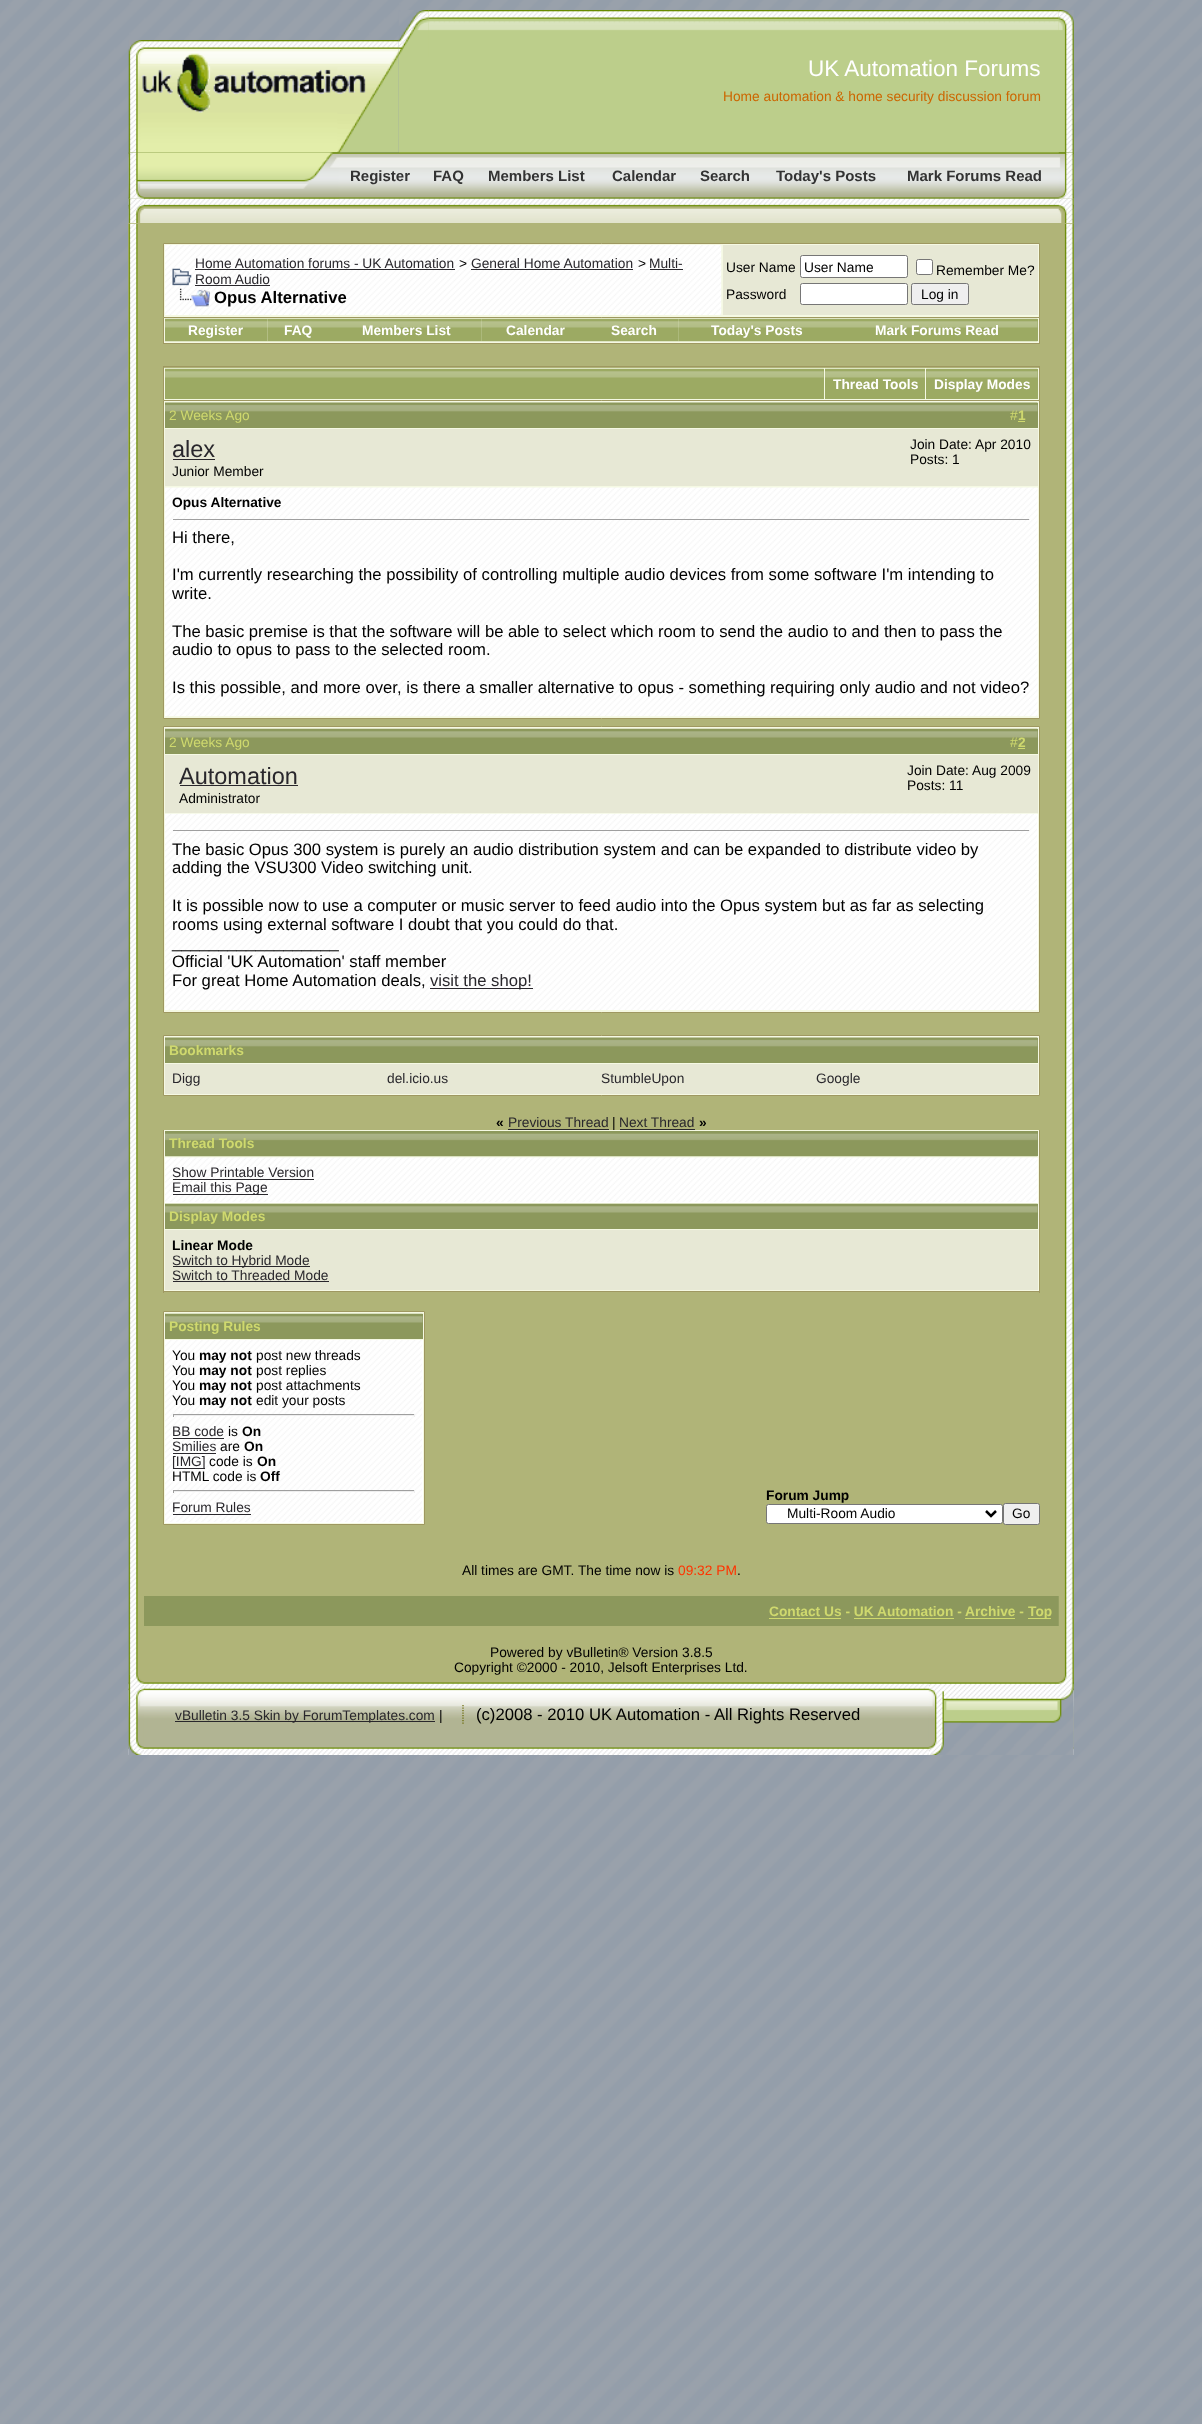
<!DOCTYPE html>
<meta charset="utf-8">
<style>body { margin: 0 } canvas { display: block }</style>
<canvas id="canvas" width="1202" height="2424"></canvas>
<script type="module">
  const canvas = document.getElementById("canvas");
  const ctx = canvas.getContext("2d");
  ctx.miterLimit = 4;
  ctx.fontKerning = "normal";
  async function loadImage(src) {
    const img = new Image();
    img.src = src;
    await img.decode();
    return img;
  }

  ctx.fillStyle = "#ffffff";
  ctx.fillRect(0, 0, 1202, 2424);
  ctx.drawImage(await loadImage("img1.png"), 0, 0, 1202, 2424);
  ctx.drawImage(await loadImage("img2.png"), 128, 40, 271, 113);
  ctx.fillStyle = "#bcce8b";
  ctx.fillRect(399, 10, 660, 143);
  ctx.drawImage(await loadImage("img3.png"), 398, 10, 31, 47);
  ctx.drawImage(await loadImage("img5.png"), 428, 10, 631, 21);
  ctx.drawImage(await loadImage("img4.png"), 1058, 10, 16, 143);
  ctx.font = "22.5px Liberation Sans";
  ctx.fillStyle = "#ffffff";
  ctx.fillText("UK Automation Forums", 808, 76);
  ctx.font = "13.75px Liberation Sans";
  ctx.fillStyle = "#cc6600";
  ctx.fillText("Home automation & home security discussion forum", 723, 101);
  ctx.drawImage(await loadImage("img6.png"), 128, 152, 946, 47);
  ctx.drawImage(await loadImage("img7.png"), 128, 152, 211, 47);
  ctx.font = "bold 15px Liberation Sans";
  ctx.fillStyle = "#333333";
  ctx.fillText("Register", 350, 181);
  ctx.fillText("FAQ", 433, 181);
  ctx.fillText("Members List", 488, 181);
  ctx.fillText("Calendar", 612, 181);
  ctx.fillText("Search", 700, 181);
  ctx.fillText("Today's Posts", 776, 181);
  ctx.fillText("Mark Forums Read", 907, 181);
  ctx.drawImage(await loadImage("img8.png"), 1058, 152, 16, 47);
  ctx.drawImage(await loadImage("img9.png"), 128, 198, 946, 26);
  ctx.drawImage(await loadImage("img10.png"), 128, 198, 16, 25);
  ctx.drawImage(await loadImage("img11.png"), 1058, 198, 16, 26);
  ctx.fillStyle = "#b0b478";
  ctx.fillRect(138, 224, 936, 1451);
  ctx.fillRect(128, 223, 945, 373);
  ctx.drawImage(await loadImage("img12.png"), 128, 223, 10, 1452);
  ctx.fillStyle = "#f5f9e3";
  ctx.beginPath();
  ctx.rect(163.5, 243.5, 876, 74);
  ctx.fill();
  ctx.strokeStyle = "#9f9861";
  ctx.stroke();
  ctx.drawImage(await loadImage("img13.png"), 165, 245, 557, 70);
  ctx.drawImage(await loadImage("img14.png"), 172, 268, 20, 18);
  ctx.font = "13.75px Liberation Sans";
  ctx.fillStyle = "#29272c";
  ctx.fillText("Home Automation forums - UK Automation", 195, 268);
  ctx.fillRect(195, 269, 260, 1);
  ctx.fillStyle = "#000000";
  ctx.fillText(">", 459, 268);
  ctx.fillStyle = "#29272c";
  ctx.fillText("General Home Automation", 471, 268);
  ctx.fillRect(471, 269, 162, 1);
  ctx.fillStyle = "#000000";
  ctx.fillText(">", 638, 268);
  ctx.fillStyle = "#29272c";
  ctx.fillText("Multi-", 649, 268);
  ctx.fillRect(650, 269, 33, 1);
  ctx.fillText("Room Audio", 195, 284);
  ctx.fillRect(195, 285, 75, 1);
  ctx.drawImage(await loadImage("img15.png"), 179, 288, 31, 19);
  ctx.font = "bold 16.67px Liberation Sans";
  ctx.fillStyle = "#000000";
  ctx.fillText("Opus Alternative", 214, 303);
  ctx.fillStyle = "#e7e8d5";
  ctx.fillRect(723, 245, 315, 70);
  ctx.font = "13.75px Liberation Sans";
  ctx.fillStyle = "#000000";
  ctx.fillText("User Name", 726, 272);
  ctx.fillStyle = "#ffffff";
  ctx.beginPath();
  ctx.roundRect(800.5, 255.5, 107, 22, 2);
  ctx.fill();
  ctx.strokeStyle = "#767676";
  ctx.stroke();
  ctx.fillStyle = "#000000";
  ctx.fillText("User Name", 804, 272);
  ctx.fillStyle = "#ffffff";
  ctx.beginPath();
  ctx.roundRect(916.5, 259.5, 16, 15, 2);
  ctx.fill();
  ctx.stroke();
  ctx.fillStyle = "#000000";
  ctx.fillText("Remember Me?", 936, 275);
  ctx.fillText("Password", 726, 299);
  ctx.fillStyle = "#ffffff";
  ctx.beginPath();
  ctx.roundRect(800.5, 283.5, 107, 21, 2);
  ctx.fill();
  ctx.stroke();
  ctx.fillStyle = "#efefef";
  ctx.beginPath();
  ctx.roundRect(911.5, 283.5, 57, 21, 2);
  ctx.fill();
  ctx.stroke();
  ctx.fillStyle = "#000000";
  ctx.fillText("Log in", 921, 299);
  ctx.fillStyle = "#f5f9e3";
  ctx.fillRect(164, 318, 875, 25);
  ctx.fillStyle = "#9f9861";
  ctx.fillRect(1039, 318, 1, 26);
  ctx.fillRect(163, 343, 877, 1);
  ctx.fillRect(163, 318, 1, 26);
  ctx.drawImage(await loadImage("img16.png"), 165, 318, 103, 24);
  ctx.font = "bold 13.75px Liberation Sans";
  ctx.fillStyle = "#ffffff";
  ctx.fillText("Register", 188, 335);
  ctx.drawImage(await loadImage("img17.png"), 267, 318, 63, 24);
  ctx.fillText("FAQ", 284, 335);
  ctx.drawImage(await loadImage("img18.png"), 330, 318, 152, 24);
  ctx.fillText("Members List", 362, 335);
  ctx.drawImage(await loadImage("img19.png"), 481, 318, 109, 24);
  ctx.fillText("Calendar", 506, 335);
  ctx.drawImage(await loadImage("img20.png"), 590, 318, 89, 24);
  ctx.fillText("Search", 611, 335);
  ctx.drawImage(await loadImage("img21.png"), 678, 318, 157, 24);
  ctx.fillText("Today's Posts", 711, 335);
  ctx.fillStyle = "#9caa63";
  ctx.fillRect(1037, 319, 1, 22);
  ctx.drawImage(await loadImage("img22.png"), 835, 318, 203, 24);
  ctx.fillStyle = "#ffffff";
  ctx.fillText("Mark Forums Read", 875, 335);
  ctx.fillStyle = "#f5f9e3";
  ctx.fillRect(164, 368, 875, 32);
  ctx.fillStyle = "#9f9861";
  ctx.fillRect(163, 366, 877, 1);
  ctx.fillRect(1039, 366, 1, 34);
  ctx.fillRect(163, 366, 1, 34);
  ctx.fillStyle = "#9caa63";
  ctx.fillRect(165, 369, 659, 30);
  ctx.drawImage(await loadImage("img23.png"), 165, 368, 659, 10);
  ctx.fillRect(825, 378, 100, 21);
  ctx.drawImage(await loadImage("img24.png"), 825, 368, 100, 10);
  ctx.fillStyle = "#ffffff";
  ctx.fillText("Thread Tools", 833, 389);
  ctx.fillStyle = "#9caa63";
  ctx.fillRect(926, 369, 112, 30);
  ctx.drawImage(await loadImage("img25.png"), 926, 368, 112, 10);
  ctx.fillStyle = "#ffffff";
  ctx.fillText("Display Modes", 934, 389);
  ctx.fillStyle = "#f5f9e3";
  ctx.beginPath();
  ctx.rect(163.5, 400.5, 876, 318);
  ctx.fill();
  ctx.strokeStyle = "#9f9861";
  ctx.stroke();
  ctx.fillStyle = "#8c985c";
  ctx.fillRect(165, 403, 873, 25);
  ctx.drawImage(await loadImage("img26.png"), 165, 402, 873, 10);
  ctx.font = "13.75px Liberation Sans";
  ctx.fillStyle = "#cfd96e";
  ctx.fillText("2 Weeks Ago", 169, 420);
  ctx.fillText("#", 1010, 420);
  ctx.font = "bold 13.75px Liberation Sans";
  ctx.fillText("1", 1018, 420);
  ctx.fillRect(1018, 421, 7, 1);
  ctx.fillStyle = "#e7e8d5";
  ctx.fillRect(165, 429, 873, 57);
  ctx.font = "23.5px Liberation Sans";
  ctx.fillStyle = "#29272c";
  ctx.fillText("alex", 172, 457);
  ctx.fillRect(173, 459, 42, 1);
  ctx.font = "13.75px Liberation Sans";
  ctx.fillStyle = "#000000";
  ctx.fillText("Junior Member", 172, 476);
  ctx.fillText("Join Date: Apr 2010", 910, 449);
  ctx.fillText("Posts: 1", 910, 464);
  ctx.fillStyle = "#ffffff";
  ctx.fillRect(1037, 488, 1, 228);
  ctx.drawImage(await loadImage("img27.png"), 165, 487, 873, 230);
  ctx.font = "bold 13.75px Liberation Sans";
  ctx.fillStyle = "#000000";
  ctx.fillText("Opus Alternative", 172, 507);
  ctx.fillStyle = "#9f9f9f";
  ctx.fillRect(173, 519, 857, 1);
  ctx.fillStyle = "#eeeeee";
  ctx.fillRect(1029, 519, 1, 1);
  ctx.font = "16.67px Liberation Sans";
  ctx.fillStyle = "#000000";
  ctx.fillText("Hi there,", 172, 543);
  ctx.fillText("I'm currently researching the possibility of controlling multiple audio devices from some software I'm intending to", 172, 580);
  ctx.fillText("write.", 172, 599);
  ctx.fillText("The basic premise is that the software will be able to select which room to send the audio to and then to pass the", 172, 637);
  ctx.fillText("audio to opus to pass to the selected room.", 172, 655);
  ctx.fillText("Is this possible, and more over, is there a smaller alternative to opus - something requiring only audio and not video?", 172, 693);
  ctx.fillStyle = "#f5f9e3";
  ctx.beginPath();
  ctx.rect(163.5, 726.5, 876, 286);
  ctx.fill();
  ctx.stroke();
  ctx.fillStyle = "#8c985c";
  ctx.fillRect(165, 729, 873, 25);
  ctx.drawImage(await loadImage("img28.png"), 165, 728, 873, 10);
  ctx.font = "13.75px Liberation Sans";
  ctx.fillStyle = "#cfd96e";
  ctx.fillText("2 Weeks Ago", 169, 747);
  ctx.fillText("#", 1010, 747);
  ctx.font = "bold 13.75px Liberation Sans";
  ctx.fillText("2", 1018, 747);
  ctx.fillRect(1018, 748, 7, 1);
  ctx.fillStyle = "#e7e8d5";
  ctx.fillRect(165, 755, 873, 58);
  ctx.font = "23.5px Liberation Sans";
  ctx.fillStyle = "#29272c";
  ctx.fillText("Automation", 179, 784);
  ctx.fillRect(180, 785, 118, 1);
  ctx.font = "13.75px Liberation Sans";
  ctx.fillStyle = "#000000";
  ctx.fillText("Administrator", 179, 803);
  ctx.fillText("Join Date: Aug 2009", 907, 775);
  ctx.fillText("Posts: 11", 907, 790);
  ctx.fillStyle = "#ffffff";
  ctx.fillRect(1037, 814, 1, 196);
  ctx.drawImage(await loadImage("img29.png"), 165, 813, 872, 197);
  ctx.fillStyle = "#9f9f9f";
  ctx.fillRect(173, 830, 857, 1);
  ctx.fillStyle = "#eeeeee";
  ctx.fillRect(1029, 830, 1, 1);
  ctx.font = "16.67px Liberation Sans";
  ctx.fillStyle = "#000000";
  ctx.fillText("The basic Opus 300 system is purely an audio distribution system and can be expanded to distribute video by", 172, 855);
  ctx.fillText("adding the VSU300 Video switching unit.", 172, 873);
  ctx.fillText("It is possible now to use a computer or music server to feed audio into the Opus system but as far as selecting", 172, 911);
  ctx.fillText("rooms using external software I doubt that you could do that.", 172, 930);
  ctx.fillText("__________________", 172, 948);
  ctx.fillText("Official 'UK Automation' staff member", 172, 967);
  ctx.fillText("For great Home Automation deals,", 172, 986);
  ctx.fillStyle = "#29272c";
  ctx.fillRect(430, 988, 103, 1);
  ctx.fillText("visit the shop!", 430, 986);
  ctx.fillStyle = "#f5f9e3";
  ctx.beginPath();
  ctx.rect(163.5, 1035.5, 876, 60);
  ctx.fill();
  ctx.stroke();
  ctx.fillStyle = "#8c985c";
  ctx.fillRect(165, 1038, 873, 25);
  ctx.drawImage(await loadImage("img30.png"), 165, 1037, 873, 10);
  ctx.font = "bold 13.75px Liberation Sans";
  ctx.fillStyle = "#cfd96e";
  ctx.fillText("Bookmarks", 169, 1055);
  ctx.fillStyle = "#e7e8d5";
  ctx.fillRect(165, 1064, 873, 30);
  ctx.font = "13.75px Liberation Sans";
  ctx.fillStyle = "#29272c";
  ctx.fillText("Digg", 172, 1083);
  ctx.fillText("del.icio.us", 387, 1083);
  ctx.fillText("StumbleUpon", 601, 1083);
  ctx.fillText("Google", 816, 1083);
  ctx.font = "bold 13.75px Liberation Sans";
  ctx.fillStyle = "#000000";
  ctx.fillText("«", 496, 1127);
  ctx.font = "13.75px Liberation Sans";
  ctx.fillStyle = "#29272c";
  ctx.fillText("Previous Thread", 508, 1127);
  ctx.fillRect(508, 1129, 101, 1);
  ctx.fillStyle = "#000000";
  ctx.fillText("|", 612, 1127);
  ctx.fillStyle = "#29272c";
  ctx.fillText("Next Thread", 619, 1127);
  ctx.fillRect(620, 1129, 75, 1);
  ctx.font = "bold 13.75px Liberation Sans";
  ctx.fillStyle = "#000000";
  ctx.fillText("»", 699, 1127);
  ctx.fillStyle = "#f5f9e3";
  ctx.fillRect(164, 1130, 875, 161);
  ctx.fillStyle = "#9f9861";
  ctx.fillRect(1039, 1130, 1, 163);
  ctx.fillRect(163, 1291, 877, 1);
  ctx.fillRect(163, 1130, 1, 163);
  ctx.fillStyle = "#8c985c";
  ctx.fillRect(165, 1131, 873, 25);
  ctx.drawImage(await loadImage("img31.png"), 165, 1133, 873, 24);
  ctx.fillStyle = "#cfd96e";
  ctx.fillText("Thread Tools", 169, 1148);
  ctx.fillStyle = "#ffffff";
  ctx.fillRect(165, 1158, 873, 45);
  ctx.drawImage(await loadImage("img32.png"), 165, 1157, 873, 45);
  ctx.font = "13.75px Liberation Sans";
  ctx.fillStyle = "#29272c";
  ctx.fillText("Show Printable Version", 172, 1177);
  ctx.fillRect(173, 1179, 141, 1);
  ctx.fillRect(173, 1194, 95, 1);
  ctx.fillText("Email this Page", 172, 1192);
  ctx.fillStyle = "#8c985c";
  ctx.fillRect(165, 1204, 873, 25);
  ctx.drawImage(await loadImage("img33.png"), 165, 1203, 873, 10);
  ctx.font = "bold 13.75px Liberation Sans";
  ctx.fillStyle = "#cfd96e";
  ctx.fillText("Display Modes", 169, 1221);
  ctx.fillStyle = "#e7e8d5";
  ctx.fillRect(165, 1230, 873, 60);
  ctx.fillStyle = "#000000";
  ctx.fillText("Linear Mode", 172, 1250);
  ctx.fillStyle = "#29272c";
  ctx.fillRect(173, 1266, 137, 1);
  ctx.font = "13.75px Liberation Sans";
  ctx.fillText("Switch to Hybrid Mode", 172, 1265);
  ctx.fillText("Switch to Threaded Mode", 172, 1280);
  ctx.fillRect(173, 1281, 156, 1);
  ctx.fillStyle = "#f5f9e3";
  ctx.beginPath();
  ctx.rect(163.5, 1311.5, 261, 213);
  ctx.fill();
  ctx.stroke();
  ctx.fillStyle = "#8c985c";
  ctx.fillRect(165, 1314, 258, 25);
  ctx.drawImage(await loadImage("img34.png"), 165, 1313, 258, 10);
  ctx.font = "bold 13.75px Liberation Sans";
  ctx.fillStyle = "#cfd96e";
  ctx.fillText("Posting Rules", 169, 1331);
  ctx.fillStyle = "#ffffff";
  ctx.fillRect(165, 1340, 258, 183);
  ctx.drawImage(await loadImage("img35.png"), 165, 1340, 257, 182);
  ctx.font = "13.75px Liberation Sans";
  ctx.fillStyle = "#000000";
  ctx.fillText("You", 172, 1360);
  ctx.font = "bold 13.75px Liberation Sans";
  ctx.fillText("may not", 199, 1360);
  ctx.font = "13.75px Liberation Sans";
  ctx.fillText("post new threads", 256, 1360);
  ctx.fillText("You", 172, 1375);
  ctx.font = "bold 13.75px Liberation Sans";
  ctx.fillText("may not", 199, 1375);
  ctx.font = "13.75px Liberation Sans";
  ctx.fillText("post replies", 256, 1375);
  ctx.fillText("You", 172, 1390);
  ctx.font = "bold 13.75px Liberation Sans";
  ctx.fillText("may not", 199, 1390);
  ctx.font = "13.75px Liberation Sans";
  ctx.fillText("post attachments", 256, 1390);
  ctx.fillText("You", 172, 1405);
  ctx.font = "bold 13.75px Liberation Sans";
  ctx.fillText("may not", 199, 1405);
  ctx.font = "13.75px Liberation Sans";
  ctx.fillText("edit your posts", 256, 1405);
  ctx.fillStyle = "#9f9f9f";
  ctx.fillRect(173, 1414, 242, 1);
  ctx.fillStyle = "#eeeeee";
  ctx.fillRect(414, 1414, 1, 3);
  ctx.fillRect(173, 1415, 242, 1);
  ctx.fillStyle = "#9f9f9f";
  ctx.fillRect(173, 1414, 1, 3);
  ctx.fillStyle = "#29272c";
  ctx.fillText("BB code", 172, 1436);
  ctx.fillRect(173, 1438, 51, 1);
  ctx.fillStyle = "#000000";
  ctx.fillText("is", 228, 1436);
  ctx.font = "bold 13.75px Liberation Sans";
  ctx.fillText("On", 242, 1436);
  ctx.font = "13.75px Liberation Sans";
  ctx.fillStyle = "#29272c";
  ctx.fillText("Smilies", 172, 1451);
  ctx.fillRect(173, 1453, 43, 1);
  ctx.fillStyle = "#000000";
  ctx.fillText("are", 220, 1451);
  ctx.font = "bold 13.75px Liberation Sans";
  ctx.fillText("On", 244, 1451);
  ctx.fillStyle = "#29272c";
  ctx.fillRect(173, 1468, 32, 1);
  ctx.font = "13.75px Liberation Sans";
  ctx.fillText("[IMG]", 172, 1466);
  ctx.fillStyle = "#000000";
  ctx.fillText("code is", 209, 1466);
  ctx.font = "bold 13.75px Liberation Sans";
  ctx.fillText("On", 257, 1466);
  ctx.font = "13.75px Liberation Sans";
  ctx.fillText("HTML code is", 172, 1481);
  ctx.font = "bold 13.75px Liberation Sans";
  ctx.fillText("Off", 260, 1481);
  ctx.fillStyle = "#9f9f9f";
  ctx.fillRect(173, 1490, 242, 1);
  ctx.fillStyle = "#eeeeee";
  ctx.fillRect(414, 1490, 1, 3);
  ctx.fillRect(173, 1491, 242, 1);
  ctx.fillStyle = "#9f9f9f";
  ctx.fillRect(173, 1490, 1, 3);
  ctx.font = "13.75px Liberation Sans";
  ctx.fillStyle = "#29272c";
  ctx.fillText("Forum Rules", 172, 1512);
  ctx.fillRect(173, 1514, 78, 1);
  ctx.font = "bold 13.75px Liberation Sans";
  ctx.fillStyle = "#000000";
  ctx.fillText("Forum Jump", 766, 1500);
  ctx.fillStyle = "#ffffff";
  ctx.beginPath();
  ctx.roundRect(766.5, 1504.5, 236, 19, 2);
  ctx.fill();
  ctx.strokeStyle = "#767676";
  ctx.stroke();
  ctx.beginPath();
  ctx.moveTo(986, 1511);
  ctx.lineTo(991, 1516);
  ctx.lineTo(996, 1511);
  ctx.strokeStyle = "#000000";
  ctx.lineWidth = 2.5;
  ctx.stroke();
  ctx.font = "13.75px Liberation Sans";
  ctx.fillStyle = "#000000";
  ctx.fillText("Multi-Room Audio", 787, 1518);
  ctx.fillStyle = "#efefef";
  ctx.beginPath();
  ctx.roundRect(1003.5, 1503.5, 36, 21, 2);
  ctx.fill();
  ctx.strokeStyle = "#767676";
  ctx.lineWidth = 1;
  ctx.stroke();
  ctx.fillStyle = "#000000";
  ctx.fillText("Go", 1012, 1518);
  ctx.fillText("All times are GMT. The time now is", 462, 1575);
  ctx.fillStyle = "#ff3300";
  ctx.fillText("09:32 PM", 678, 1575);
  ctx.fillStyle = "#000000";
  ctx.fillText(".", 737, 1575);
  ctx.fillStyle = "#8c985c";
  ctx.fillRect(144, 1596, 915, 30);
  ctx.font = "bold 13.75px Liberation Sans";
  ctx.fillStyle = "#cfd96e";
  ctx.fillText("Contact Us - UK Automation - Archive -", 769, 1616);
  ctx.fillRect(769, 1618, 72, 1);
  ctx.fillRect(854, 1618, 100, 1);
  ctx.fillRect(965, 1618, 50, 1);
  ctx.fillRect(1028, 1618, 23, 1);
  ctx.fillText("Top", 1028, 1616);
  ctx.font = "13.75px Liberation Sans";
  ctx.fillStyle = "#000000";
  ctx.fillText("Powered by vBulletin® Version 3.8.5", 490, 1657);
  ctx.fillText("Copyright ©2000 - 2010, Jelsoft Enterprises Ltd.", 454, 1672);
  ctx.drawImage(await loadImage("img36.png"), 1058, 223, 16, 1452);
  ctx.drawImage(await loadImage("img37.png"), 128, 1675, 946, 80);
  ctx.drawImage(await loadImage("img38.png"), 128, 1675, 16, 80);
  ctx.beginPath();
  ctx.moveTo(463, 1705);
  ctx.lineTo(463, 1724);
  ctx.strokeStyle = "#666600";
  ctx.lineWidth = 1.2;
  ctx.setLineDash([1.25, 1.25]);
  ctx.stroke();
  ctx.fillStyle = "#29272c";
  ctx.fillRect(175, 1721, 260, 1);
  ctx.fillText("vBulletin 3.5 Skin by ForumTemplates.com", 175, 1720);
  ctx.fillStyle = "#000000";
  ctx.fillText("|", 439, 1720);
  ctx.font = "16.67px Liberation Sans";
  ctx.fillText("(c)2008 - 2010 UK Automation - All Rights Reserved", 476, 1720);
  ctx.drawImage(await loadImage("img39.png"), 928, 1675, 146, 80);
</script>
